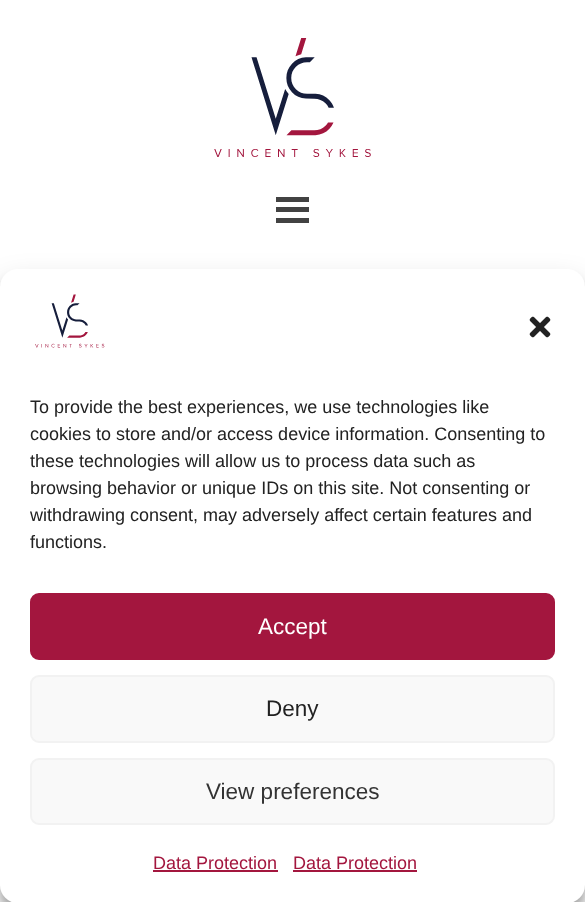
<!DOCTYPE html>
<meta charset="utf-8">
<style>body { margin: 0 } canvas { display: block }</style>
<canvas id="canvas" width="585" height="902"></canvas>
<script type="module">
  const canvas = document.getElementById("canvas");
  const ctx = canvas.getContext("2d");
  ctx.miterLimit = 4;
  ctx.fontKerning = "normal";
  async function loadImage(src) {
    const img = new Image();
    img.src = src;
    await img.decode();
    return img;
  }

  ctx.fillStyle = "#ffffff";
  ctx.fillRect(0, 0, 585, 902);
  ctx.drawImage(await loadImage("img1.png"), 214, 38, 157, 119);
  ctx.fillStyle = "#424242";
  ctx.fillRect(276, 207, 33, 5);
  ctx.fillRect(276, 197, 33, 5);
  ctx.fillRect(276, 218, 33, 5);
  ctx.fillStyle = "rgba(0, 0, 0, 0.23)";
  ctx.filter = "blur(4.5px)";
  ctx.beginPath();
  ctx.roundRect(0, 278, 585, 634, 18);
  ctx.fill();
  ctx.filter = "none";
  ctx.fillStyle = "rgba(0, 0, 0, 0.19)";
  ctx.filter = "blur(15px)";
  ctx.beginPath();
  ctx.roundRect(0, 284, 585, 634, 18);
  ctx.fill();
  ctx.filter = "none";
  ctx.fillStyle = "#808080";
  ctx.filter = "blur(4px)";
  ctx.beginPath();
  ctx.roundRect(480, 792, 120, 90, 3);
  ctx.fill();
  ctx.filter = "none";
  ctx.fillStyle = "#ffffff";
  ctx.beginPath();
  ctx.roundRect(0, 269, 585, 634, 18);
  ctx.fill();
  ctx.drawImage(await loadImage("img2.png"), 35, 294, 70, 54);
  ctx.drawImage(await loadImage("img3.png"), 529, 316, 22, 22);
  ctx.font = "18px Liberation Sans";
  ctx.fillStyle = "#222222";
  ctx.fillText("To provide the best experiences, we use technologies like", 30, 413);
  ctx.fillText("cookies to store and/or access device information. Consenting to", 30, 440);
  ctx.fillText("these technologies will allow us to process data such as", 30, 467);
  ctx.fillText("browsing behavior or unique IDs on this site. Not consenting or", 30, 494);
  ctx.fillText("withdrawing consent, may adversely affect certain features and", 30, 521);
  ctx.fillText("functions.", 30, 548);
  ctx.fillStyle = "#a3163e";
  ctx.beginPath();
  ctx.roundRect(31, 594, 523, 65, 8);
  ctx.fill();
  ctx.strokeStyle = "#a3163e";
  ctx.lineWidth = 2;
  ctx.stroke();
  ctx.font = "22.5px Liberation Sans";
  ctx.fillStyle = "#ffffff";
  ctx.fillText("Accept", 258, 634);
  ctx.fillStyle = "#f9f9f9";
  ctx.beginPath();
  ctx.roundRect(31, 676, 523, 66, 8);
  ctx.fill();
  ctx.strokeStyle = "#f2f2f2";
  ctx.stroke();
  ctx.fillStyle = "#222222";
  ctx.fillText("Deny", 266, 716);
  ctx.fillStyle = "#f9f9f9";
  ctx.beginPath();
  ctx.roundRect(31, 759, 523, 65, 8);
  ctx.fill();
  ctx.stroke();
  ctx.fillStyle = "#333333";
  ctx.fillText("View preferences", 206, 799);
  ctx.font = "18px Liberation Sans";
  ctx.fillStyle = "#a3163e";
  ctx.fillText("Data Protection", 153, 869);
  ctx.fillRect(153, 870, 125, 2);
  ctx.fillText("Data Protection", 293, 869);
  ctx.fillRect(293, 870, 124, 2);
</script>
